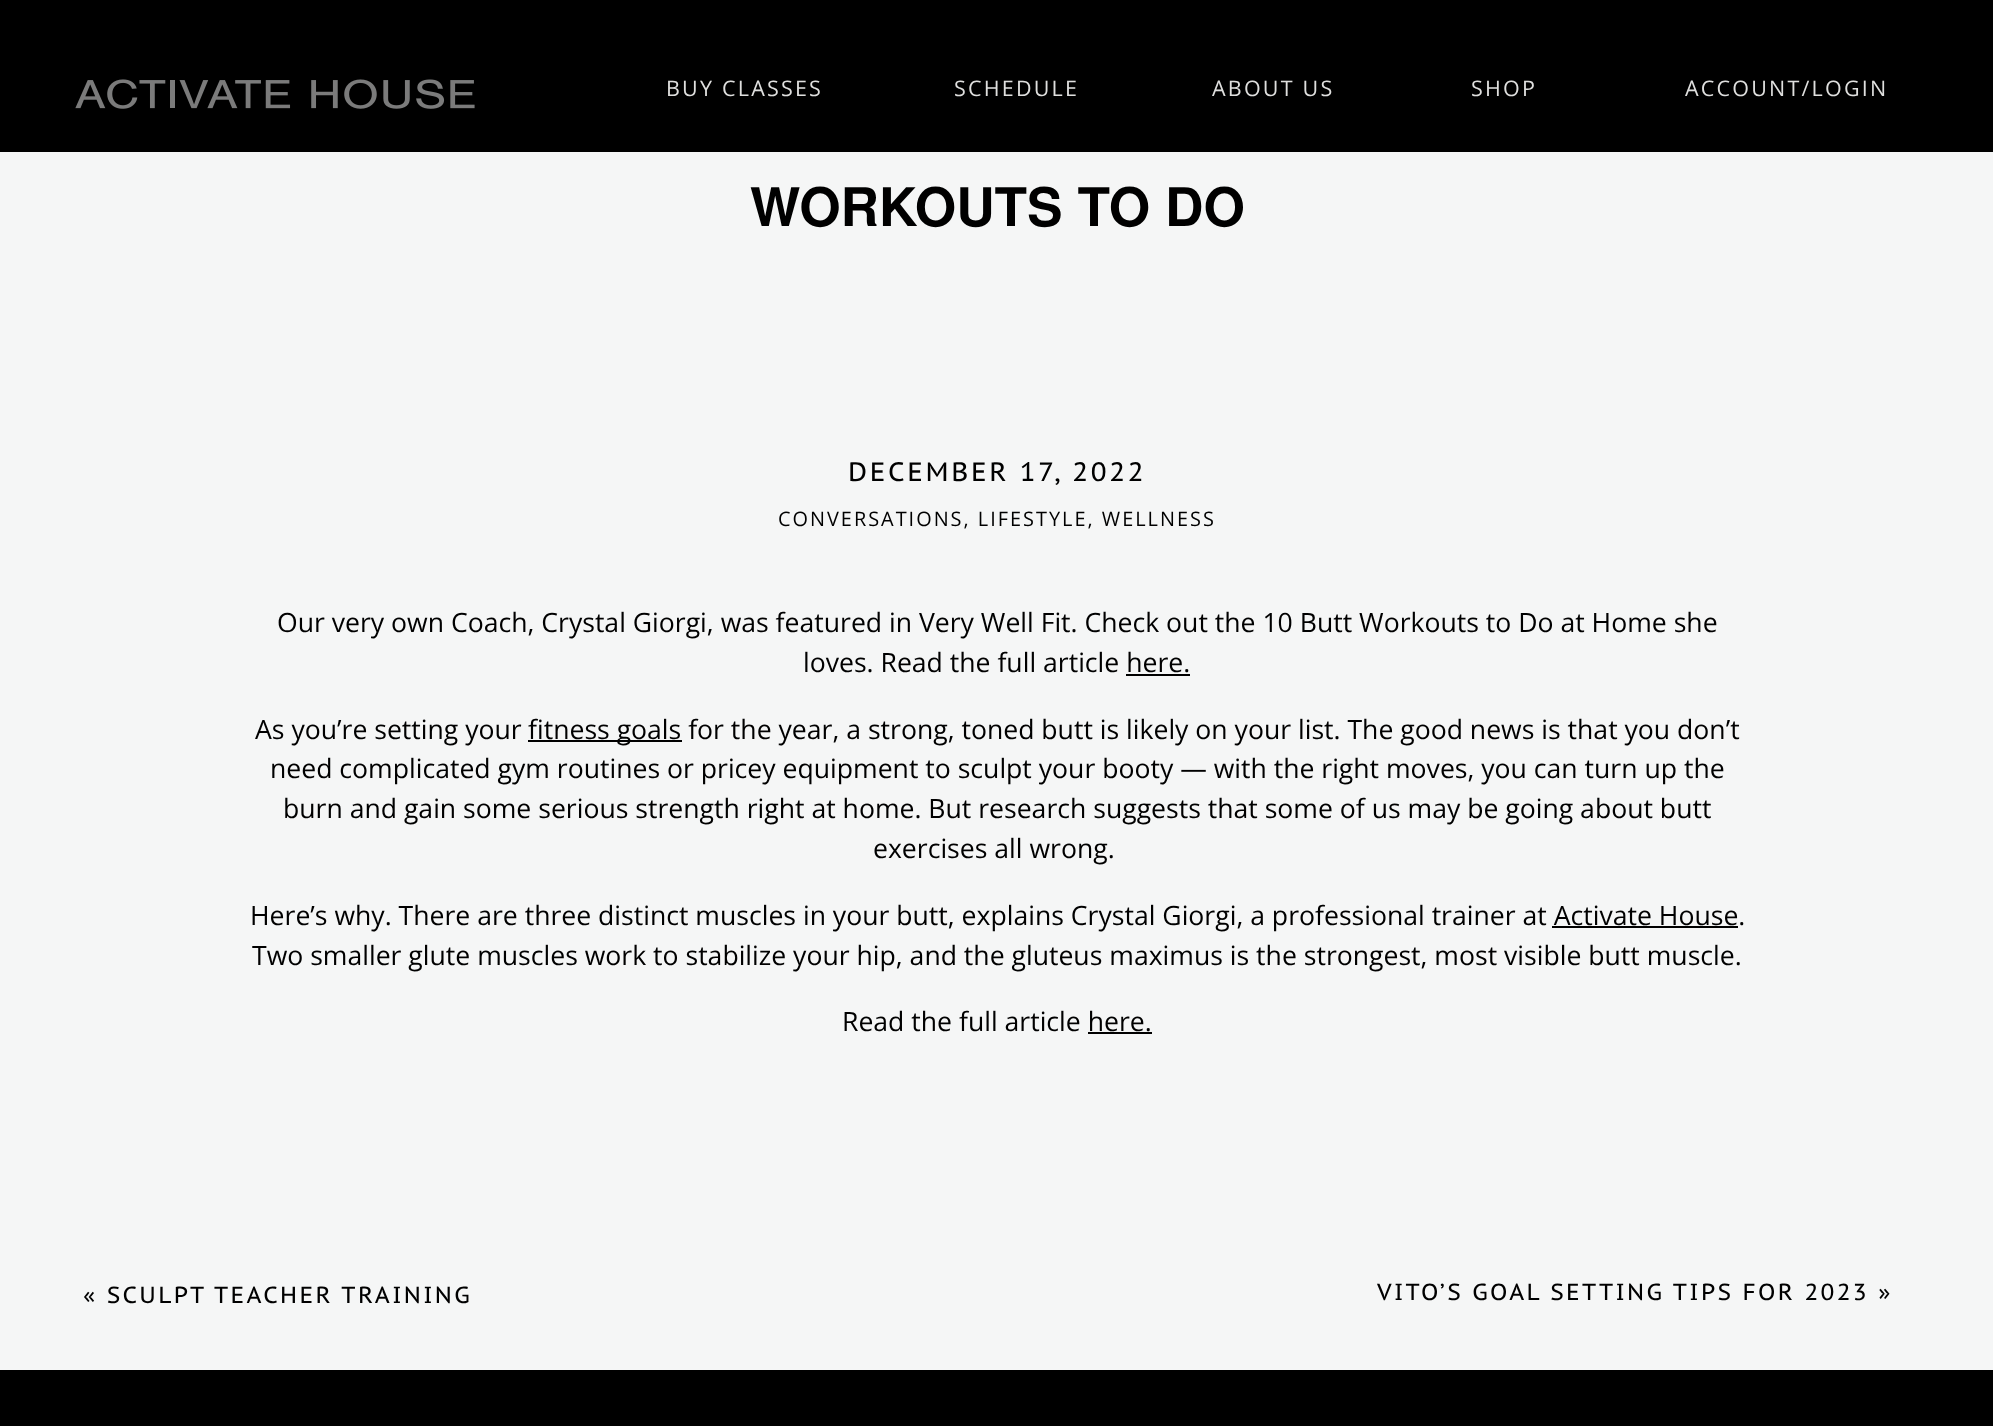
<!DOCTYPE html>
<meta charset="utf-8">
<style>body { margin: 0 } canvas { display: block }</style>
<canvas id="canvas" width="1993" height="1426"></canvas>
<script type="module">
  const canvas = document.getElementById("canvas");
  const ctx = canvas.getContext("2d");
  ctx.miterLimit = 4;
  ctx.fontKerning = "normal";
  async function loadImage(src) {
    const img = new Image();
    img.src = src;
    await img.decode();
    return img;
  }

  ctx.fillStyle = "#f5f6f6";
  ctx.fillRect(0, 0, 1993, 1426);
  ctx.fillStyle = "#000000";
  ctx.fillRect(0, 0, 1993, 152);
  ctx.drawImage(await loadImage("img1.png"), 75, 79, 400, 30);
  ctx.letterSpacing = "2.2px";
  ctx.font = "21.5px Open Sans";
  ctx.fillStyle = "#dfdfde";
  ctx.fillText("BUY CLASSES", 666, 96);
  ctx.fillText("SCHEDULE", 954, 96);
  ctx.fillText("ABOUT US", 1212, 96);
  ctx.fillText("SHOP", 1471, 96);
  ctx.fillText("ACCOUNT/LOGIN", 1685, 96);
  ctx.letterSpacing = "0px";
  ctx.font = "bold 53.25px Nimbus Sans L";
  ctx.fillStyle = "#000000";
  ctx.fillText("WORKOUTS TO DO", 750, 226);
  ctx.letterSpacing = "2.7px";
  ctx.font = "26.6px PT Sans Caption";
  ctx.fillText("DECEMBER 17, 2022", 848, 481);
  ctx.letterSpacing = "2px";
  ctx.font = "19.9px Open Sans";
  ctx.fillText("CONVERSATIONS, LIFESTYLE, WELLNESS", 778, 526);
  ctx.letterSpacing = "0px";
  ctx.font = "26.6px Open Sans";
  ctx.fillText("Our very own Coach, Crystal Giorgi, was featured in Very Well Fit. Check out the 10 Butt Workouts to Do at Home she", 277, 632);
  ctx.fillText("loves. Read the full article here.", 803, 672);
  ctx.fillRect(1126, 674, 64, 2);
  ctx.fillText("As you’re setting your", 255, 739);
  ctx.fillRect(528, 740, 154, 2);
  ctx.fillText("fitness goals for the year, a strong, toned butt is likely on your list. The good news is that you don’t", 528, 739);
  ctx.fillText("need complicated gym routines or pricey equipment to sculpt your booty — with the right moves, you can turn up the", 270, 778);
  ctx.fillText("burn and gain some serious strength right at home. But research suggests that some of us may be going about butt", 283, 818);
  ctx.fillText("exercises all wrong.", 873, 858);
  ctx.fillText("Here’s why. There are three distinct muscles in your butt, explains Crystal Giorgi, a professional trainer at Activate House.", 250, 925);
  ctx.fillRect(1552, 926, 186, 2);
  ctx.fillText("Two smaller glute muscles work to stabilize your hip, and the gluteus maximus is the strongest, most visible butt muscle.", 252, 965);
  ctx.fillText("Read the full article here.", 842, 1031);
  ctx.fillRect(1088, 1032, 64, 2);
  ctx.letterSpacing = "2.35px";
  ctx.font = "23.25px PT Sans Caption";
  ctx.fillText("« SCULPT TEACHER TRAINING", 83, 1303);
  ctx.fillText("VITO’S GOAL SETTING TIPS FOR 2023 »", 1377, 1300);
  ctx.fillRect(0, 1370, 1993, 56);
</script>
